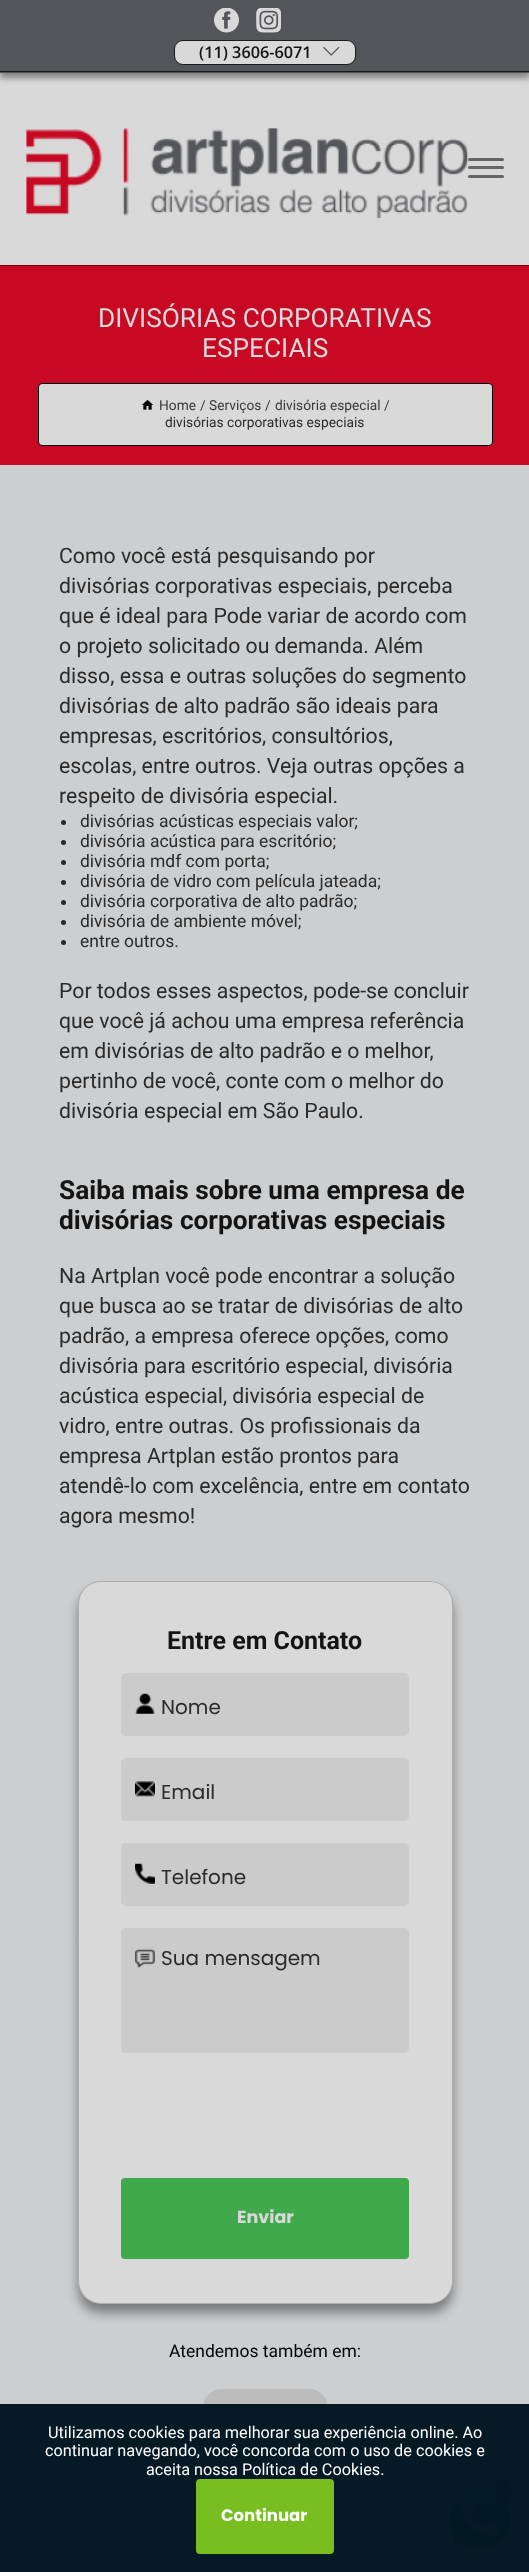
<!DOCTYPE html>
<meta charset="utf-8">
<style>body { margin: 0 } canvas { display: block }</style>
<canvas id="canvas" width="529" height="2572"></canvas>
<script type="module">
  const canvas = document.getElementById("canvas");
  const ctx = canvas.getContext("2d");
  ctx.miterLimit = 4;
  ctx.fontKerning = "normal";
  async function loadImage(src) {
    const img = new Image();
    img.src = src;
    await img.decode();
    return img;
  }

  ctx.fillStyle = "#ccced0";
  ctx.fillRect(0, 0, 529, 2572);
  ctx.fillStyle = "#d9d9d9";
  ctx.fillRect(0, 73, 529, 192);
  ctx.fillStyle = "rgba(0, 0, 0, 0.4)";
  ctx.filter = "blur(3px)";
  ctx.beginPath();
  ctx.rect(0, 5, 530, 73);
  ctx.fill();
  ctx.filter = "none";
  ctx.fillStyle = "#53555a";
  ctx.fillRect(0, 0, 529, 73);
  ctx.fillStyle = "#1b1b1b";
  ctx.fillRect(0, 71, 529, 1);
  ctx.drawImage(await loadImage("img1.png"), 214, 8, 25, 25);
  ctx.drawImage(await loadImage("img2.png"), 256, 8, 25, 25);
  ctx.fillStyle = "#d9d9d9";
  ctx.beginPath();
  ctx.roundRect(174.5, 40.5, 181, 24, 8.5);
  ctx.fill();
  ctx.strokeStyle = "#1b1b1b";
  ctx.stroke();
  ctx.font = "600 16.25px Open Sans";
  ctx.fillStyle = "#141414";
  ctx.fillText("(11) 3606-6071", 199, 58);
  ctx.drawImage(await loadImage("img3.png"), 323, 46, 17, 10);
  ctx.drawImage(await loadImage("img4.png"), 26, 128, 442, 91);
  ctx.fillStyle = "#666666";
  ctx.beginPath();
  ctx.roundRect(468, 158, 36, 3, 1.5);
  ctx.fill();
  ctx.beginPath();
  ctx.roundRect(468, 166, 36, 3, 1.5);
  ctx.fill();
  ctx.beginPath();
  ctx.roundRect(468, 175, 36, 3, 1.5);
  ctx.fill();
  ctx.fillStyle = "#c70924";
  ctx.fillRect(0, 266, 529, 199);
  ctx.fillStyle = "#700202";
  ctx.fillRect(0, 265, 529, 1);
  ctx.font = "26.25px Roboto";
  ctx.fillStyle = "#d9d9d9";
  ctx.fillText("DIVISÓRIAS CORPORATIVAS", 98, 327);
  ctx.fillText("ESPECIAIS", 202, 357);
  ctx.beginPath();
  ctx.roundRect(38.5, 383.5, 454, 62, 3.5);
  ctx.fill();
  ctx.strokeStyle = "#000000";
  ctx.stroke();
  ctx.drawImage(await loadImage("img5.png"), 141, 399, 13, 11);
  ctx.font = "13.75px Roboto";
  ctx.fillStyle = "#3a3a3a";
  ctx.fillText("Home", 159, 410);
  ctx.fillText("/", 200, 410);
  ctx.fillText("Serviços", 209, 410);
  ctx.fillText("/", 265, 410);
  ctx.fillText("divisória especial", 275, 410);
  ctx.fillText("/", 384, 410);
  ctx.fillStyle = "#2b2b2b";
  ctx.fillText("divisórias corporativas especiais", 165, 427);
  ctx.font = "21.25px Roboto";
  ctx.fillText("Como você está pesquisando por", 59, 563);
  ctx.fillText("divisórias corporativas especiais, perceba", 59, 593);
  ctx.fillText("que é ideal para Pode variar de acordo com", 59, 623);
  ctx.fillText("o projeto solicitado ou demanda. Além", 59, 653);
  ctx.fillText("disso, essa e outras soluções do segmento", 59, 683);
  ctx.fillText("divisórias de alto padrão são ideais para", 59, 713);
  ctx.fillText("empresas, escritórios, consultórios,", 59, 743);
  ctx.fillText("escolas, entre outros. Veja outras opções a", 59, 773);
  ctx.fillText("respeito de divisória especial.", 59, 803);
  ctx.fillStyle = "#292929";
  ctx.beginPath();
  ctx.arc(63.5, 822.5, 2.5, 0, Math.PI * 2);
  ctx.fill();
  ctx.font = "17.5px Roboto";
  ctx.fillStyle = "#2b2b2b";
  ctx.fillText("divisórias acústicas especiais valor;", 80, 827);
  ctx.fillStyle = "#292929";
  ctx.beginPath();
  ctx.arc(63.5, 842.5, 2.5, 0, Math.PI * 2);
  ctx.fill();
  ctx.fillStyle = "#2b2b2b";
  ctx.fillText("divisória acústica para escritório;", 80, 847);
  ctx.fillStyle = "#292929";
  ctx.beginPath();
  ctx.arc(63.5, 862.5, 2.5, 0, Math.PI * 2);
  ctx.fill();
  ctx.fillStyle = "#2b2b2b";
  ctx.fillText("divisória mdf com porta;", 80, 867);
  ctx.fillStyle = "#292929";
  ctx.beginPath();
  ctx.arc(63.5, 882.5, 2.5, 0, Math.PI * 2);
  ctx.fill();
  ctx.fillStyle = "#2b2b2b";
  ctx.fillText("divisória de vidro com película jateada;", 80, 887);
  ctx.fillStyle = "#292929";
  ctx.beginPath();
  ctx.arc(63.5, 902.5, 2.5, 0, Math.PI * 2);
  ctx.fill();
  ctx.fillStyle = "#2b2b2b";
  ctx.fillText("divisória corporativa de alto padrão;", 80, 907);
  ctx.fillStyle = "#292929";
  ctx.beginPath();
  ctx.arc(63.5, 922.5, 2.5, 0, Math.PI * 2);
  ctx.fill();
  ctx.fillStyle = "#2b2b2b";
  ctx.fillText("divisória de ambiente móvel;", 80, 927);
  ctx.fillStyle = "#292929";
  ctx.beginPath();
  ctx.arc(63.5, 942.5, 2.5, 0, Math.PI * 2);
  ctx.fill();
  ctx.fillStyle = "#2b2b2b";
  ctx.fillText("entre outros.", 80, 947);
  ctx.font = "21.25px Roboto";
  ctx.fillText("Por todos esses aspectos, pode-se concluir", 59, 998);
  ctx.fillText("que você já achou uma empresa referência", 59, 1028);
  ctx.fillText("em divisórias de alto padrão e o melhor,", 59, 1058);
  ctx.fillText("pertinho de você, conte com o melhor do", 59, 1088);
  ctx.fillText("divisória especial em São Paulo.", 59, 1118);
  ctx.font = "bold 26.25px Roboto";
  ctx.fillStyle = "#141414";
  ctx.fillText("Saiba mais sobre uma empresa de", 59, 1199);
  ctx.fillText("divisórias corporativas especiais", 59, 1229);
  ctx.font = "21.25px Roboto";
  ctx.fillStyle = "#2b2b2b";
  ctx.fillText("Na Artplan você pode encontrar a solução", 59, 1283);
  ctx.fillText("que busca ao se tratar de divisórias de alto", 59, 1313);
  ctx.fillText("padrão, a empresa oferece opções, como", 59, 1343);
  ctx.fillText("divisória para escritório especial, divisória", 59, 1373);
  ctx.fillText("acústica especial, divisória especial de", 59, 1403);
  ctx.fillText("vidro, entre outras. Os profissionais da", 59, 1433);
  ctx.fillText("empresa Artplan estão prontos para", 59, 1463);
  ctx.fillText("atendê-lo com excelência, entre em contato", 59, 1493);
  ctx.fillText("agora mesmo!", 59, 1523);
  ctx.fillStyle = "rgba(0, 0, 0, 0.4)";
  ctx.filter = "blur(5.5px)";
  ctx.beginPath();
  ctx.roundRect(78, 1590, 375, 723, 23);
  ctx.fill();
  ctx.filter = "none";
  ctx.fillStyle = "#d9d9d9";
  ctx.beginPath();
  ctx.roundRect(78.5, 1581.5, 374, 722, 22.5);
  ctx.fill();
  ctx.strokeStyle = "#adadad";
  ctx.stroke();
  ctx.font = "bold 25px Roboto";
  ctx.fillStyle = "#141414";
  ctx.fillText("Entre em Contato", 167, 1649);
  ctx.fillStyle = "#cbcbcb";
  ctx.beginPath();
  ctx.roundRect(121, 1673, 288, 63, 5);
  ctx.fill();
  ctx.drawImage(await loadImage("img6.png"), 135, 1693, 20, 21);
  ctx.font = "20px Poppins";
  ctx.fillStyle = "#2b2b2b";
  ctx.fillText("Nome", 161, 1714);
  ctx.fillStyle = "#cbcbcb";
  ctx.beginPath();
  ctx.roundRect(121, 1758, 288, 63, 5);
  ctx.fill();
  ctx.drawImage(await loadImage("img7.png"), 135, 1781, 20, 16);
  ctx.fillStyle = "#2b2b2b";
  ctx.fillText("Email", 161, 1799);
  ctx.fillStyle = "#cbcbcb";
  ctx.beginPath();
  ctx.roundRect(121, 1843, 288, 63, 5);
  ctx.fill();
  ctx.drawImage(await loadImage("img8.png"), 135, 1863, 20, 21);
  ctx.fillStyle = "#2b2b2b";
  ctx.fillText("Telefone", 161, 1884);
  ctx.fillStyle = "#cbcbcb";
  ctx.beginPath();
  ctx.roundRect(121, 1928, 288, 125, 5);
  ctx.fill();
  ctx.drawImage(await loadImage("img9.png"), 135, 1948, 20, 20);
  ctx.fillStyle = "#2b2b2b";
  ctx.fillText("Sua mensagem", 161, 1965);
  ctx.fillStyle = "#3eaa4b";
  ctx.beginPath();
  ctx.roundRect(121, 2178, 288, 81, 4);
  ctx.fill();
  ctx.font = "bold 17.5px Poppins";
  ctx.fillStyle = "#d9d9d9";
  ctx.fillText("Enviar", 237, 2223);
  ctx.font = "17.5px Roboto";
  ctx.fillStyle = "#030303";
  ctx.fillText("Atendemos também em:", 169, 2357);
  ctx.fillStyle = "#bcbcbc";
  ctx.beginPath();
  ctx.roundRect(203, 2389, 125, 37, 18.5);
  ctx.fill();
  ctx.fillStyle = "#000000";
  ctx.beginPath();
  ctx.moveTo(257, 2440);
  ctx.lineTo(274, 2457);
  ctx.lineTo(273, 2458);
  ctx.lineTo(256, 2440.5);
  ctx.closePath();
  ctx.fill();
  ctx.beginPath();
  ctx.moveTo(273.5, 2457);
  ctx.lineTo(290.5, 2440);
  ctx.lineTo(291.5, 2440.5);
  ctx.lineTo(274.5, 2458);
  ctx.closePath();
  ctx.fill();
  ctx.drawImage(await loadImage("img10.png"), 442, 2481, 76, 75);
  ctx.fillStyle = "#bc0404";
  ctx.beginPath();
  ctx.roundRect(496, 2480, 15, 25, 7.5);
  ctx.fill();
  ctx.fillStyle = "rgba(2, 23, 34, 0.99)";
  ctx.fillRect(0, 2404, 529, 168);
  ctx.font = "16.25px Roboto";
  ctx.fillStyle = "#fdfdfe";
  ctx.fillText("Utilizamos cookies para melhorar sua experiência online. Ao", 48, 2438);
  ctx.fillText("continuar navegando, você concorda com o uso de cookies e", 45, 2456);
  ctx.fillText("aceita nossa Política de Cookies.", 146, 2475);
  ctx.fillStyle = "#79be21";
  ctx.beginPath();
  ctx.roundRect(196, 2479, 138, 75, 4);
  ctx.fill();
  ctx.font = "bold 16.5px Poppins";
  ctx.fillStyle = "#fdfdfe";
  ctx.fillText("Continuar", 221, 2521);
</script>
